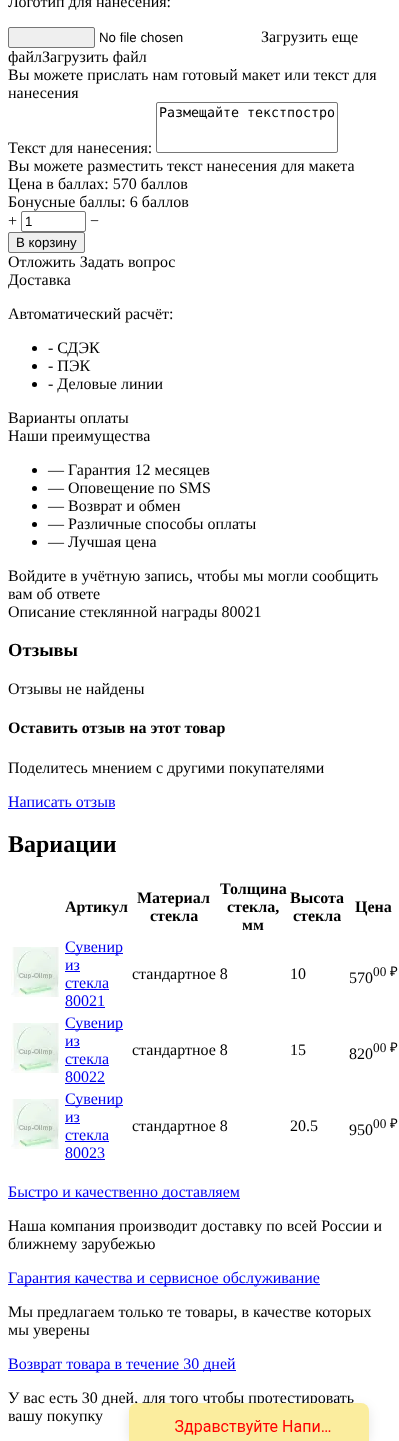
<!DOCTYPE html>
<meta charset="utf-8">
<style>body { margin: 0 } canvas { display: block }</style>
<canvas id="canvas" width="399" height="1441"></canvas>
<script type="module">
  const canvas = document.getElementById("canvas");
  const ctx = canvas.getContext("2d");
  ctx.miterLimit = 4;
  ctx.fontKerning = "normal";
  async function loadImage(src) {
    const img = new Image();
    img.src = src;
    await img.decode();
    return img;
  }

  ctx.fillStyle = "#ffffff";
  ctx.fillRect(0, 0, 399, 1441);
  ctx.font = "16px Liberation Serif";
  ctx.fillStyle = "#000000";
  ctx.fillText("Логотип для нанесения:", 8, 7);
  ctx.fillStyle = "#efefef";
  ctx.beginPath();
  ctx.roundRect(8.5, 27.5, 86, 20, 1.5);
  ctx.fill();
  ctx.strokeStyle = "#767676";
  ctx.stroke();
  ctx.font = "13.3px Liberation Sans";
  ctx.fillStyle = "#000000";
  ctx.fillText("No file chosen", 99, 42);
  ctx.font = "16px Liberation Serif";
  ctx.fillText("Загрузить еще", 261, 42);
  ctx.fillText("файлЗагрузить файл", 8, 62);
  ctx.fillText("Вы можете прислать нам готовый макет или текст для", 8, 80);
  ctx.fillText("нанесения", 8, 98);
  ctx.beginPath();
  ctx.roundRect(156.5, 102.5, 181, 50, 1.5);
  ctx.stroke();
  ctx.font = "13.3px DejaVu Sans Mono";
  ctx.fillText("Размещайте текстпостро", 159, 117);
  ctx.font = "16px Liberation Serif";
  ctx.fillText("Текст для нанесения:", 8, 153);
  ctx.fillText("Вы можете разместить текст нанесения для макета", 8, 171);
  ctx.fillText("Цена в баллах: 570 баллов", 8, 189);
  ctx.fillText("Бонусные баллы: 6 баллов", 8, 207);
  ctx.fillText("+", 8, 226);
  ctx.beginPath();
  ctx.roundRect(21.5, 211.5, 64, 20, 1.5);
  ctx.stroke();
  ctx.font = "13.3px Liberation Sans";
  ctx.fillText("1", 25, 226);
  ctx.font = "16px Liberation Serif";
  ctx.fillText("−", 90, 226);
  ctx.fillStyle = "#efefef";
  ctx.beginPath();
  ctx.roundRect(8.5, 232.5, 76, 20, 1.5);
  ctx.fill();
  ctx.stroke();
  ctx.font = "13.3px Liberation Sans";
  ctx.fillStyle = "#000000";
  ctx.fillText("В корзину", 16, 247);
  ctx.font = "16px Liberation Serif";
  ctx.fillText("Отложить Задать вопрос", 8, 267);
  ctx.fillText("Доставка", 8, 285);
  ctx.fillText("Автоматический расчёт:", 8, 319);
  ctx.beginPath();
  ctx.arc(34.5, 348.5, 2.5, 0, Math.PI * 2);
  ctx.fill();
  ctx.fillText("- СДЭК", 48, 353);
  ctx.beginPath();
  ctx.arc(34.5, 366.5, 2.5, 0, Math.PI * 2);
  ctx.fill();
  ctx.fillText("- ПЭК", 48, 371);
  ctx.beginPath();
  ctx.arc(34.5, 384.5, 2.5, 0, Math.PI * 2);
  ctx.fill();
  ctx.fillText("- Деловые линии", 48, 389);
  ctx.fillText("Варианты оплаты", 8, 423);
  ctx.fillText("Наши преимущества", 8, 441);
  ctx.beginPath();
  ctx.arc(34.5, 470.5, 2.5, 0, Math.PI * 2);
  ctx.fill();
  ctx.fillText("— Гарантия 12 месяцев", 48, 475);
  ctx.beginPath();
  ctx.arc(34.5, 488.5, 2.5, 0, Math.PI * 2);
  ctx.fill();
  ctx.fillText("— Оповещение по SMS", 48, 493);
  ctx.beginPath();
  ctx.arc(34.5, 506.5, 2.5, 0, Math.PI * 2);
  ctx.fill();
  ctx.fillText("— Возврат и обмен", 48, 511);
  ctx.beginPath();
  ctx.arc(34.5, 524.5, 2.5, 0, Math.PI * 2);
  ctx.fill();
  ctx.fillText("— Различные способы оплаты", 48, 529);
  ctx.beginPath();
  ctx.arc(34.5, 542.5, 2.5, 0, Math.PI * 2);
  ctx.fill();
  ctx.fillText("— Лучшая цена", 48, 547);
  ctx.fillText("Войдите в учётную запись, чтобы мы могли сообщить", 8, 581);
  ctx.fillText("вам об ответе", 8, 599);
  ctx.fillText("Описание стеклянной награды 80021", 8, 617);
  ctx.font = "bold 18.5px Liberation Serif";
  ctx.fillText("Отзывы", 8, 656);
  ctx.font = "16px Liberation Serif";
  ctx.fillText("Отзывы не найдены", 8, 694);
  ctx.font = "bold 16px Liberation Serif";
  ctx.fillText("Оставить отзыв на этот товар", 8, 733);
  ctx.font = "16px Liberation Serif";
  ctx.fillText("Поделитесь мнением с другими покупателями", 8, 773);
  ctx.fillStyle = "#0000ee";
  ctx.fillText("Написать отзыв", 8, 807);
  ctx.fillRect(8, 808, 107, 1);
  ctx.font = "bold 24px Liberation Serif";
  ctx.fillStyle = "#000000";
  ctx.fillText("Вариации", 8, 852);
  ctx.font = "bold 16px Liberation Serif";
  ctx.fillText("Артикул", 65, 912);
  ctx.fillText("Материал", 137, 903);
  ctx.fillText("стекла", 150, 921);
  ctx.fillText("Толщина", 220, 894);
  ctx.fillText("стекла,", 227, 912);
  ctx.fillText("мм", 242, 930);
  ctx.fillText("Высота", 290, 903);
  ctx.fillText("стекла", 293, 921);
  ctx.fillText("Цена", 355, 912);
  ctx.drawImage(await loadImage("img1.png"), 11, 947, 48, 50);
  ctx.fillStyle = "#0000ee";
  ctx.fillRect(65, 953, 58, 1);
  ctx.font = "16px Liberation Serif";
  ctx.fillText("Сувенир", 65, 952);
  ctx.fillText("из", 65, 970);
  ctx.fillRect(65, 971, 15, 1);
  ctx.fillText("стекла", 65, 988);
  ctx.fillRect(65, 989, 44, 1);
  ctx.fillText("80021", 65, 1006);
  ctx.fillRect(65, 1007, 40, 1);
  ctx.fillStyle = "#000000";
  ctx.fillText("стандартное 8", 132, 979);
  ctx.fillText("10", 290, 979);
  ctx.fillText("570", 349, 983);
  ctx.font = "13.3px Liberation Serif";
  ctx.fillText("00", 373, 976);
  ctx.font = "13.3px Noto Sans";
  ctx.fillText("₽", 390, 976);
  ctx.drawImage(await loadImage("img1.png"), 11, 1023, 48, 50);
  ctx.fillStyle = "#0000ee";
  ctx.fillRect(65, 1029, 58, 1);
  ctx.font = "16px Liberation Serif";
  ctx.fillText("Сувенир", 65, 1028);
  ctx.fillText("из", 65, 1046);
  ctx.fillRect(65, 1047, 15, 1);
  ctx.fillText("стекла", 65, 1064);
  ctx.fillRect(65, 1065, 44, 1);
  ctx.fillText("80022", 65, 1082);
  ctx.fillRect(65, 1083, 40, 1);
  ctx.fillStyle = "#000000";
  ctx.fillText("стандартное 8", 132, 1055);
  ctx.fillText("15", 290, 1055);
  ctx.fillText("820", 349, 1059);
  ctx.font = "13.3px Liberation Serif";
  ctx.fillText("00", 373, 1052);
  ctx.font = "13.3px Noto Sans";
  ctx.fillText("₽", 390, 1052);
  ctx.drawImage(await loadImage("img1.png"), 11, 1099, 48, 50);
  ctx.fillStyle = "#0000ee";
  ctx.fillRect(65, 1105, 58, 1);
  ctx.font = "16px Liberation Serif";
  ctx.fillText("Сувенир", 65, 1104);
  ctx.fillText("из", 65, 1122);
  ctx.fillRect(65, 1123, 15, 1);
  ctx.fillText("стекла", 65, 1140);
  ctx.fillRect(65, 1141, 44, 1);
  ctx.fillText("80023", 65, 1158);
  ctx.fillRect(65, 1159, 40, 1);
  ctx.fillStyle = "#000000";
  ctx.fillText("стандартное 8", 132, 1131);
  ctx.fillText("20.5", 290, 1131);
  ctx.fillText("950", 349, 1135);
  ctx.font = "13.3px Liberation Serif";
  ctx.fillText("00", 373, 1128);
  ctx.font = "13.3px Noto Sans";
  ctx.fillText("₽", 390, 1128);
  ctx.fillStyle = "#0000ee";
  ctx.fillRect(8, 1198, 232, 1);
  ctx.font = "16px Liberation Serif";
  ctx.fillText("Быстро и качественно доставляем", 8, 1197);
  ctx.fillStyle = "#000000";
  ctx.fillText("Наша компания производит доставку по всей России и", 8, 1231);
  ctx.fillText("ближнему зарубежью", 8, 1249);
  ctx.fillStyle = "#0000ee";
  ctx.fillRect(8, 1284, 312, 1);
  ctx.fillText("Гарантия качества и сервисное обслуживание", 8, 1283);
  ctx.fillStyle = "#000000";
  ctx.fillText("Мы предлагаем только те товары, в качестве которых", 8, 1317);
  ctx.fillText("мы уверены", 8, 1335);
  ctx.fillStyle = "#0000ee";
  ctx.fillRect(8, 1370, 228, 1);
  ctx.fillText("Возврат товара в течение 30 дней", 8, 1369);
  ctx.fillStyle = "#000000";
  ctx.fillText("У вас есть 30 дней, для того чтобы протестировать", 8, 1403);
  ctx.fillText("вашу покупку", 8, 1421);
  ctx.fillStyle = "rgba(0, 0, 0, 0.1)";
  ctx.filter = "blur(6px)";
  ctx.beginPath();
  ctx.roundRect(129, 1407, 240, 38, 8);
  ctx.fill();
  ctx.filter = "none";
  ctx.drawImage(await loadImage("img2.png"), 129, 1403, 240, 38);
</script>
